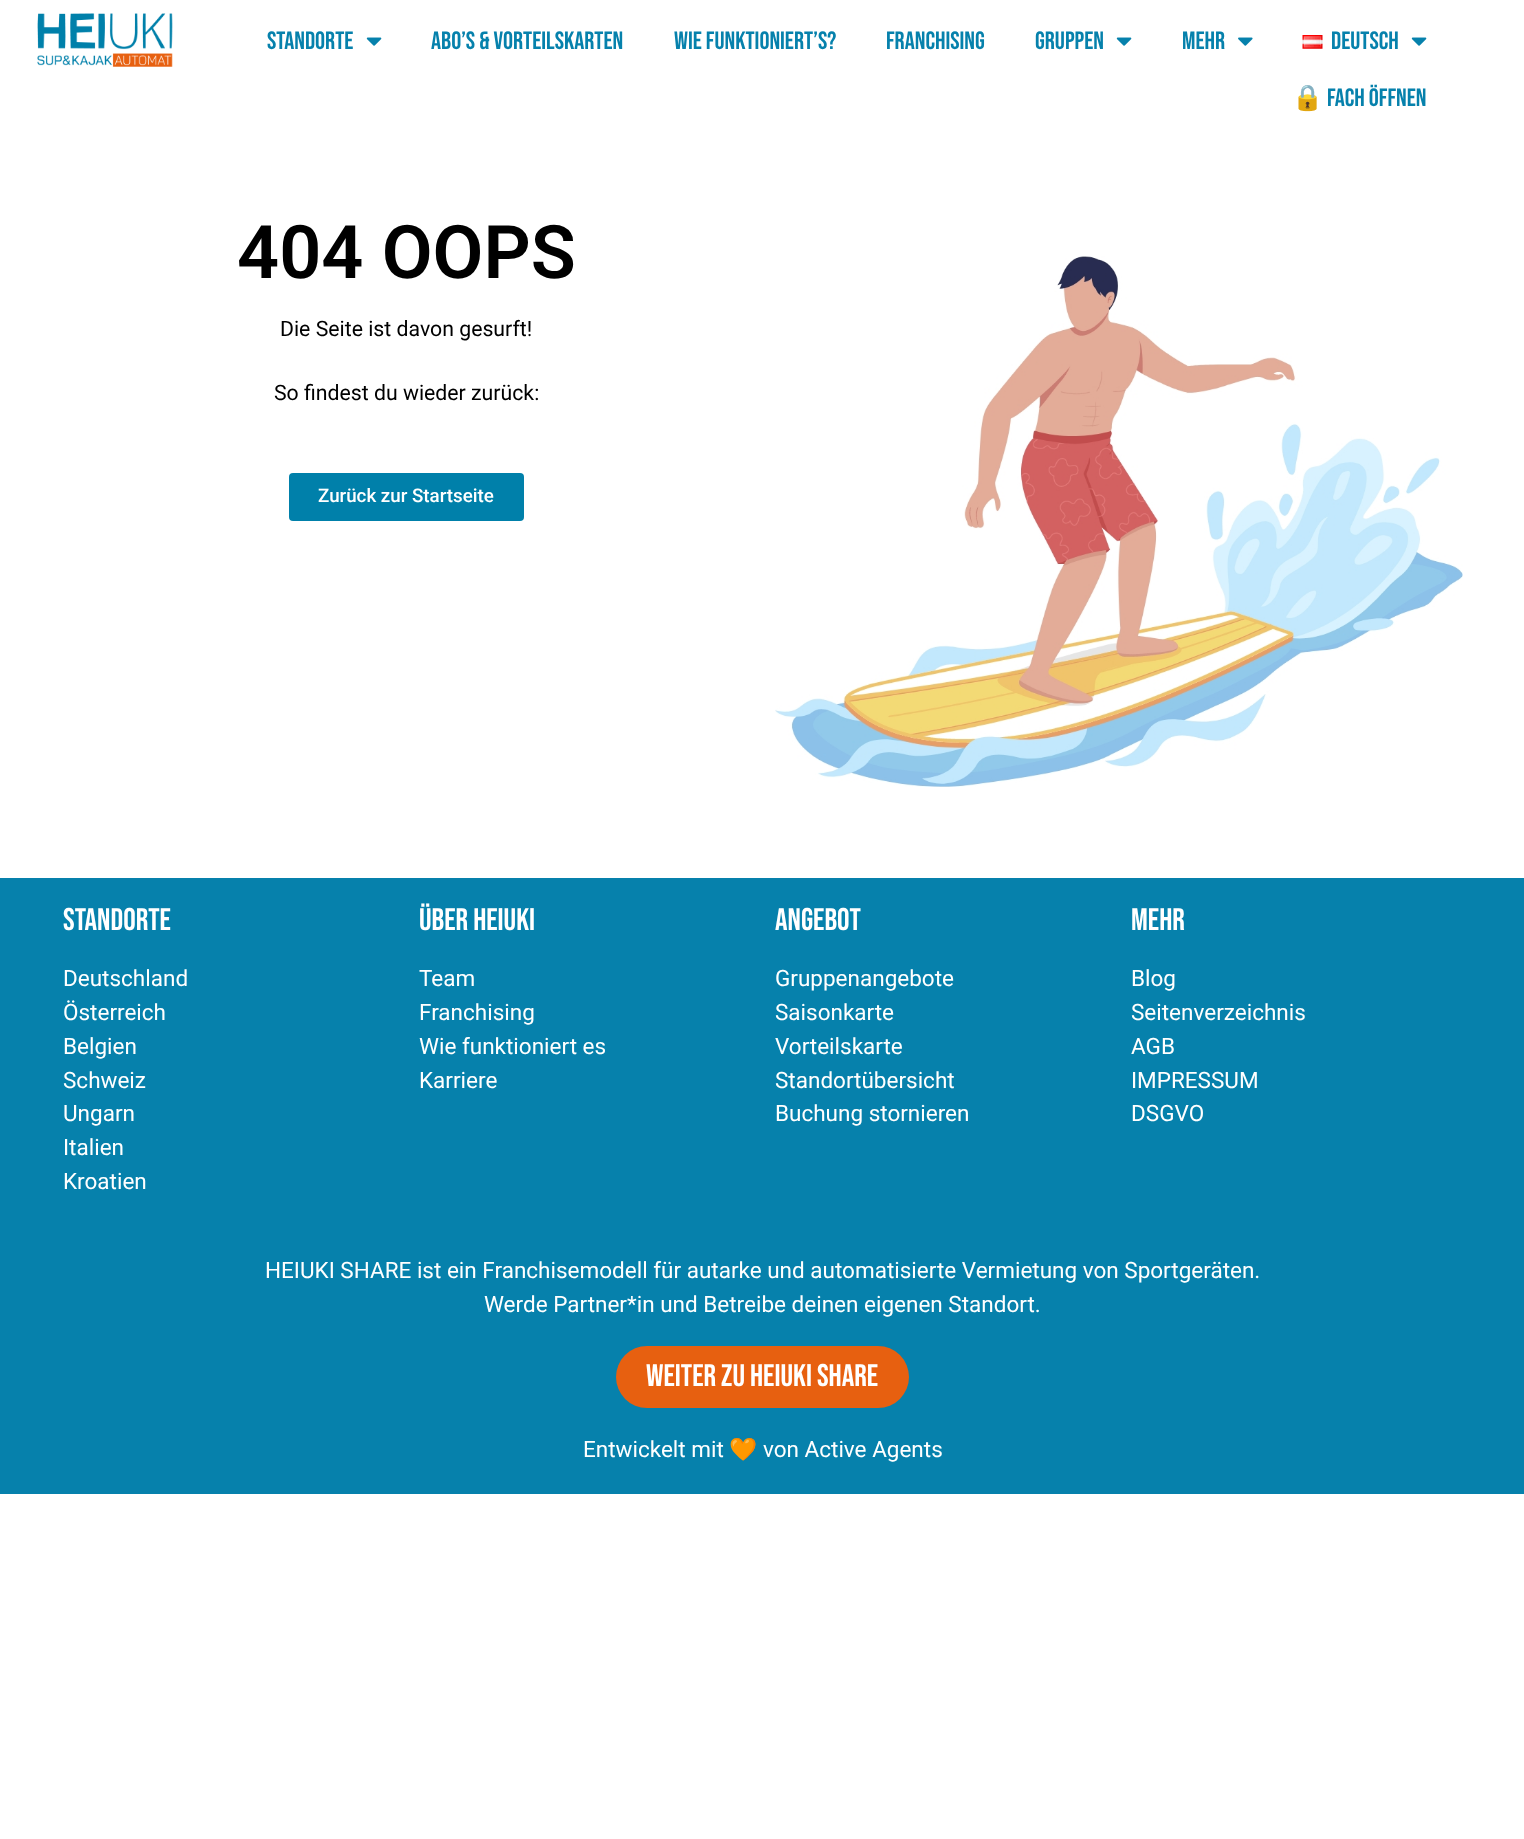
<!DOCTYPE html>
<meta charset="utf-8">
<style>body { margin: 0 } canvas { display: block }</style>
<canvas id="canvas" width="1524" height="1839"></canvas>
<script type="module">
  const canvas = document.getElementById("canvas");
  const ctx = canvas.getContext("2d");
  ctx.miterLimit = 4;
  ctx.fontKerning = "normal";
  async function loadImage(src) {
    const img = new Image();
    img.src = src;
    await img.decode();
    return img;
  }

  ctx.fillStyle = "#ffffff";
  ctx.fillRect(0, 0, 1524, 1839);
  ctx.drawImage(await loadImage("img1.png"), 37, 13, 136, 54);
  ctx.font = "25px Bebas Neue";
  ctx.fillStyle = "#0681ac";
  ctx.fillText("Standorte", 267, 49);
  ctx.drawImage(await loadImage("img2.png"), 366, 37, 16, 9);
  ctx.fillText("Abo’s & Vorteilskarten", 431, 49);
  ctx.fillText("Wie funktioniert’s?", 674, 49);
  ctx.fillText("Franchising", 886, 49);
  ctx.fillText("Gruppen", 1035, 49);
  ctx.drawImage(await loadImage("img2.png"), 1116, 37, 16, 9);
  ctx.fillText("Mehr", 1182, 49);
  ctx.drawImage(await loadImage("img3.png"), 1238, 37, 15, 9);
  ctx.drawImage(await loadImage("img4.png"), 1302, 35, 21, 14);
  ctx.fillText("Deutsch", 1331, 49);
  ctx.drawImage(await loadImage("img2.png"), 1411, 37, 16, 9);
  ctx.font = "25px Noto Color Emoji";
  ctx.fillText("🔒", 1292, 106);
  ctx.font = "25px Bebas Neue";
  ctx.fillText("FACH ÖFFNEN", 1327, 106);
  ctx.font = "600 73.75px Roboto";
  ctx.fillStyle = "#000000";
  ctx.fillText("404 OOPS", 237, 278);
  ctx.font = "21.25px Roboto";
  ctx.fillText("Die Seite ist davon gesurft!", 280, 336);
  ctx.fillText("So findest du wieder zurück:", 274, 400);
  ctx.fillStyle = "#0080aa";
  ctx.beginPath();
  ctx.roundRect(289, 473, 235, 48, 4);
  ctx.fill();
  ctx.font = "500 18.75px Roboto";
  ctx.fillStyle = "#ffffff";
  ctx.fillText("Zurück zur Startseite", 318, 502);
  ctx.drawImage(await loadImage("img5.png"), 775, 256, 688, 531);
  ctx.fillStyle = "#0681ac";
  ctx.fillRect(0, 878, 1524, 616);
  ctx.font = "31.25px Bebas Neue";
  ctx.fillStyle = "#ffffff";
  ctx.fillText("Standorte", 63, 930);
  ctx.font = "22.5px Roboto";
  ctx.fillText("Deutschland", 63, 986);
  ctx.fillText("Österreich", 63, 1020);
  ctx.fillText("Belgien", 63, 1054);
  ctx.fillText("Schweiz", 63, 1088);
  ctx.fillText("Ungarn", 63, 1121);
  ctx.fillText("Italien", 63, 1155);
  ctx.fillText("Kroatien", 63, 1189);
  ctx.font = "31.25px Bebas Neue";
  ctx.fillText("Über HEIUKI", 419, 930);
  ctx.font = "22.5px Roboto";
  ctx.fillText("Team", 419, 986);
  ctx.fillText("Franchising", 419, 1020);
  ctx.fillText("Wie funktioniert es", 419, 1054);
  ctx.fillText("Karriere", 419, 1088);
  ctx.font = "31.25px Bebas Neue";
  ctx.fillText("Angebot", 775, 930);
  ctx.font = "22.5px Roboto";
  ctx.fillText("Gruppenangebote", 775, 986);
  ctx.fillText("Saisonkarte", 775, 1020);
  ctx.fillText("Vorteilskarte", 775, 1054);
  ctx.fillText("Standortübersicht", 775, 1088);
  ctx.fillText("Buchung stornieren", 775, 1121);
  ctx.font = "31.25px Bebas Neue";
  ctx.fillText("Mehr", 1131, 930);
  ctx.font = "22.5px Roboto";
  ctx.fillText("Blog", 1131, 986);
  ctx.fillText("Seitenverzeichnis", 1131, 1020);
  ctx.fillText("AGB", 1131, 1054);
  ctx.fillText("IMPRESSUM", 1131, 1088);
  ctx.fillText("DSGVO", 1131, 1121);
  ctx.fillText("HEIUKI SHARE ist ein Franchisemodell für autarke und automatisierte Vermietung von Sportgeräten.", 265, 1278);
  ctx.fillText("Werde Partner*in und Betreibe deinen eigenen Standort.", 484, 1312);
  ctx.fillStyle = "#e76010";
  ctx.beginPath();
  ctx.roundRect(616, 1346, 293, 62, 31);
  ctx.fill();
  ctx.font = "31.25px Bebas Neue";
  ctx.fillStyle = "#ffffff";
  ctx.fillText("Weiter zu HEIUKI SHARE", 646, 1386);
  ctx.font = "22.5px Roboto";
  ctx.fillText("Entwickelt mit", 583, 1457);
  ctx.font = "22.5px Noto Color Emoji";
  ctx.fillText("🧡", 729, 1457);
  ctx.font = "22.5px Roboto";
  ctx.fillText("von Active Agents", 763, 1457);
</script>
